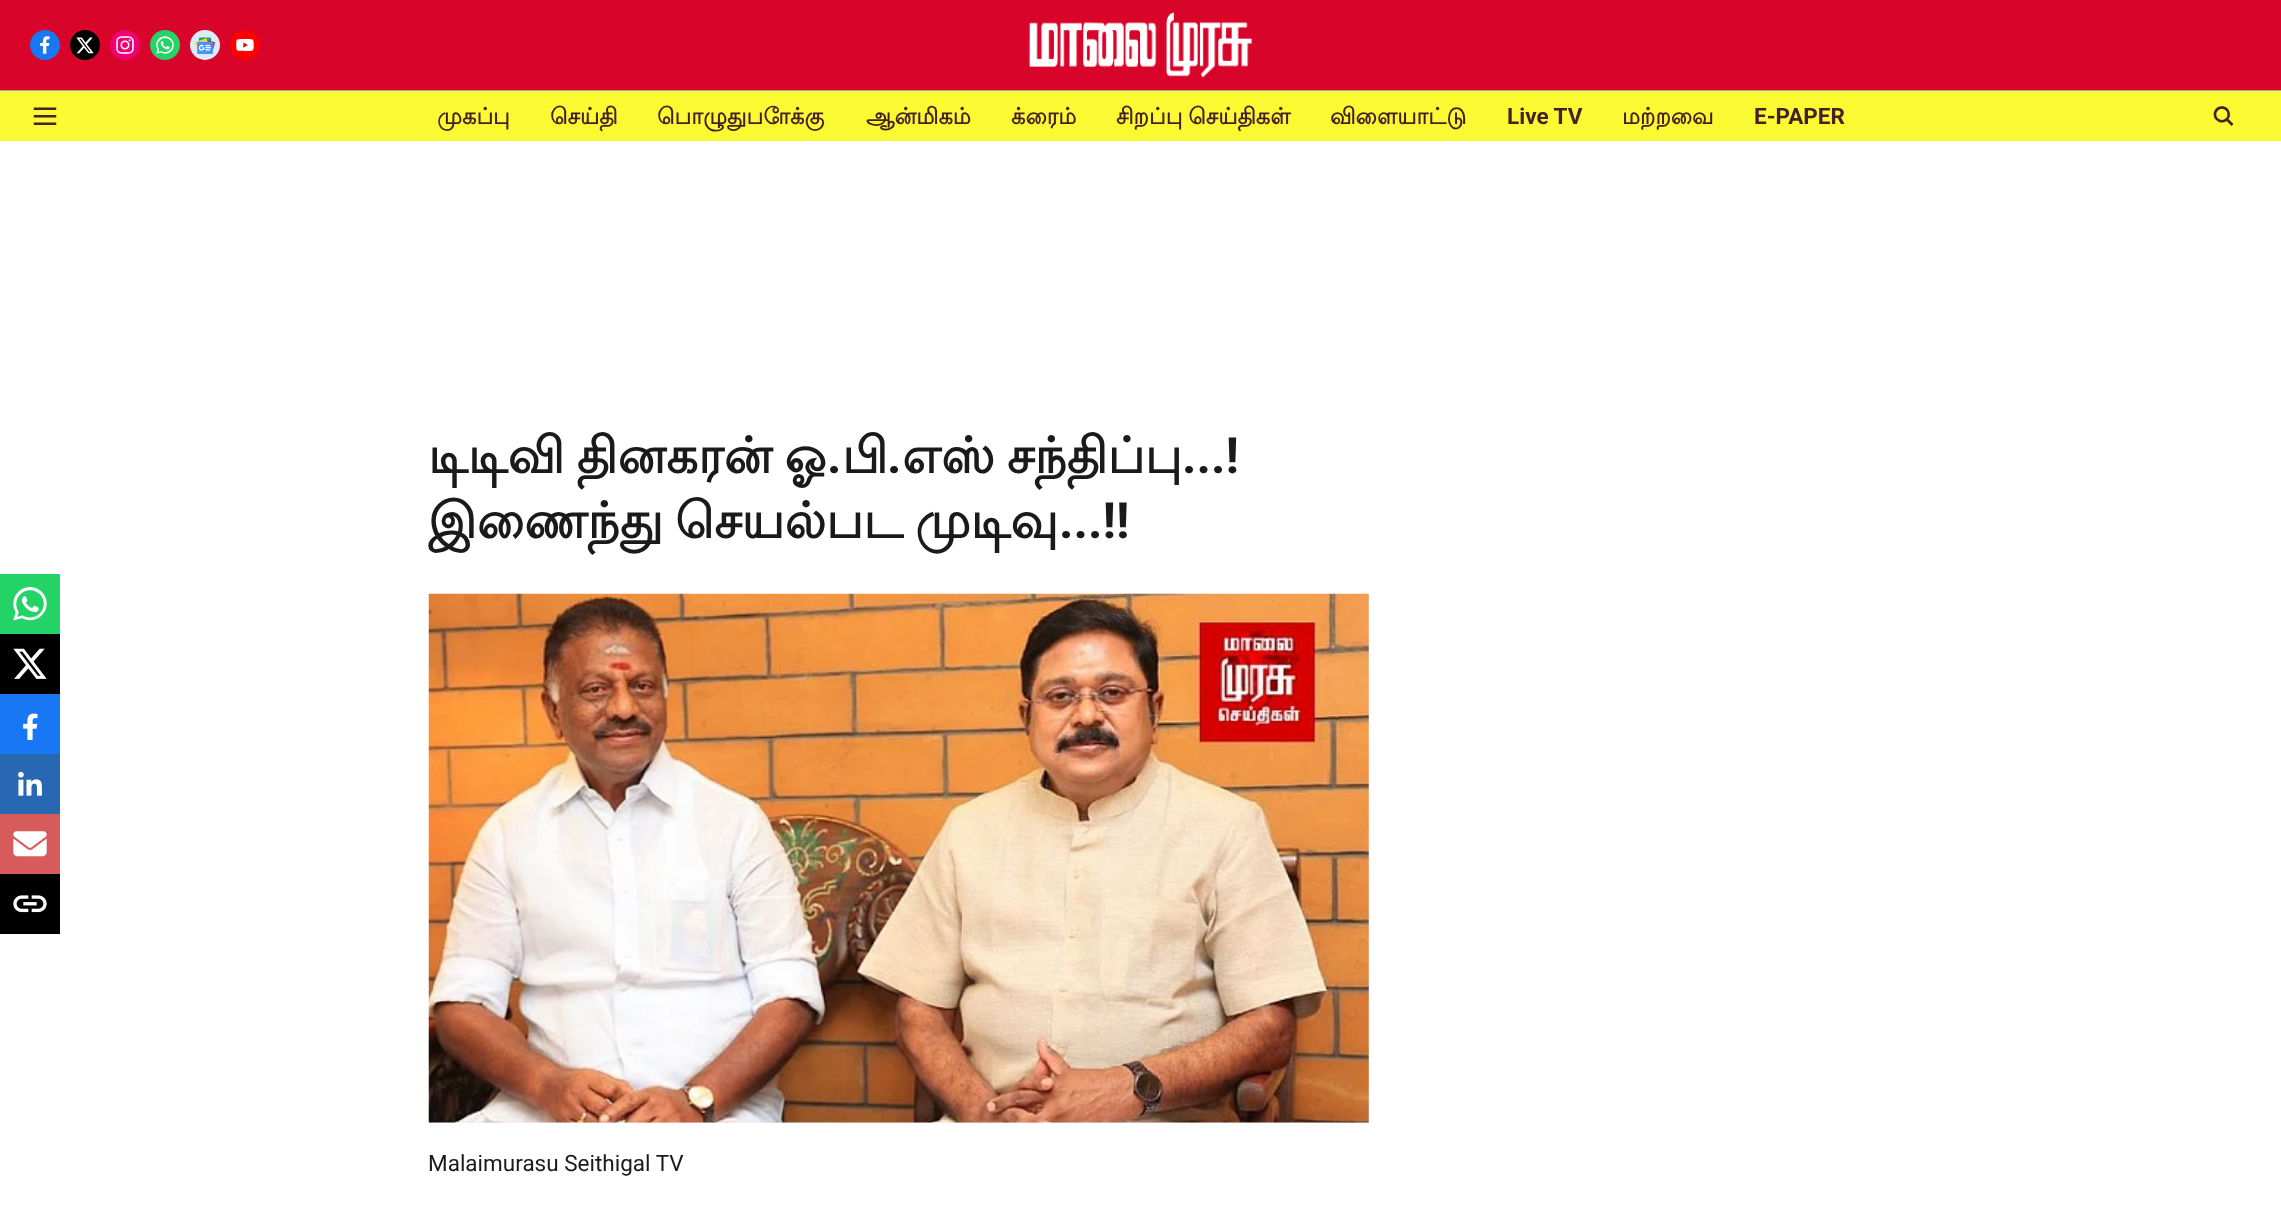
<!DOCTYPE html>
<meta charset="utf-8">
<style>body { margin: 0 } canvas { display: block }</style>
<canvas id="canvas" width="2281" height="1208"></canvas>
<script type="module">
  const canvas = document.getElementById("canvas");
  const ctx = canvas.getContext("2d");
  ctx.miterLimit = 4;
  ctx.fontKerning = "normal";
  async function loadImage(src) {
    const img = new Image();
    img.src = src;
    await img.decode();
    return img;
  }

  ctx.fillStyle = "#ffffff";
  ctx.fillRect(0, 0, 2281, 1208);
  ctx.fillStyle = "#d90429";
  ctx.fillRect(0, 0, 2281, 90);
  ctx.fillStyle = "#a4a4a4";
  ctx.fillRect(0, 90, 2281, 1);
  ctx.drawImage(await loadImage("img1.png"), 30, 30, 30, 30);
  ctx.drawImage(await loadImage("img2.png"), 70, 30, 30, 30);
  ctx.drawImage(await loadImage("img3.png"), 110, 30, 30, 30);
  ctx.drawImage(await loadImage("img4.png"), 150, 30, 30, 30);
  ctx.drawImage(await loadImage("img5.png"), 190, 30, 30, 30);
  ctx.drawImage(await loadImage("img6.png"), 230, 30, 30, 30);
  ctx.drawImage(await loadImage("img7.png"), 1028, 12, 225, 66);
  ctx.fillStyle = "#fafa33";
  ctx.fillRect(0, 91, 2281, 50);
  ctx.drawImage(await loadImage("img8.png"), 33, 107, 24, 18);
  ctx.font = "bold 22.5px Lohit Tamil";
  ctx.fillStyle = "#481d24";
  ctx.fillText("முகப்பு", 437, 124);
  ctx.fillText("செய்தி", 550, 124);
  ctx.fillText("பொழுதுபோக்கு", 657, 124);
  ctx.fillText("ஆன்மிகம்", 866, 124);
  ctx.fillText("க்ரைம்", 1011, 124);
  ctx.wordSpacing = "-1px";
  ctx.fillText("சிறப்பு செய்திகள்", 1116, 124);
  ctx.wordSpacing = "0px";
  ctx.fillText("விளையாட்டு", 1330, 124);
  ctx.font = "bold 22.5px Roboto";
  ctx.fillText("Live TV", 1507, 124);
  ctx.font = "bold 22.5px Lohit Tamil";
  ctx.fillText("மற்றவை", 1622, 124);
  ctx.font = "bold 22.5px Roboto";
  ctx.fillText("E-PAPER", 1754, 124);
  ctx.drawImage(await loadImage("img9.png"), 2213, 106, 21, 20);
  ctx.wordSpacing = "-3px";
  ctx.font = "bold 50px Lohit Tamil";
  ctx.fillStyle = "#1a1a1a";
  ctx.fillText("டிடிவி தினகரன் ஓ", 428, 473);
  ctx.wordSpacing = "0px";
  ctx.font = "bold 50px Roboto";
  ctx.fillText(".", 827, 473);
  ctx.font = "bold 50px Lohit Tamil";
  ctx.fillText("பி", 842, 473);
  ctx.font = "bold 50px Roboto";
  ctx.fillText(".", 887, 473);
  ctx.wordSpacing = "-3px";
  ctx.font = "bold 50px Lohit Tamil";
  ctx.fillText("எஸ் சந்திப்பு", 902, 473);
  ctx.wordSpacing = "0px";
  ctx.font = "bold 50px Roboto";
  ctx.fillText("...!", 1182, 473);
  ctx.wordSpacing = "-3px";
  ctx.font = "bold 50px Lohit Tamil";
  ctx.fillText("இணைந்து செயல்பட முடிவு", 428, 538);
  ctx.wordSpacing = "0px";
  ctx.font = "bold 50px Roboto";
  ctx.fillText("...!!", 1059, 538);
  ctx.fillStyle = "#f0f0f0";
  ctx.fillRect(429, 594, 940, 529);
  ctx.drawImage(await loadImage("img10.png"), 428, 593, 941, 530);
  ctx.fillStyle = "#24d366";
  ctx.fillRect(0, 574, 60, 60);
  ctx.drawImage(await loadImage("img11.png"), 13, 587, 34, 34);
  ctx.fillStyle = "#000000";
  ctx.fillRect(0, 634, 60, 60);
  ctx.drawImage(await loadImage("img12.png"), 13, 648, 34, 31);
  ctx.fillStyle = "#1877f2";
  ctx.fillRect(0, 694, 60, 60);
  ctx.drawImage(await loadImage("img13.png"), 23, 713, 15, 27);
  ctx.fillStyle = "#2867b2";
  ctx.fillRect(0, 754, 60, 60);
  ctx.drawImage(await loadImage("img14.png"), 18, 771, 24, 25);
  ctx.fillStyle = "#d85b5b";
  ctx.fillRect(0, 814, 60, 60);
  ctx.drawImage(await loadImage("img15.png"), 13, 831, 34, 26);
  ctx.fillStyle = "#000000";
  ctx.fillRect(0, 874, 60, 60);
  ctx.drawImage(await loadImage("img16.png"), 13, 895, 34, 18);
  ctx.font = "22.5px Roboto";
  ctx.fillStyle = "#1a1a1a";
  ctx.fillText("Malaimurasu Seithigal TV", 428, 1171);
</script>
